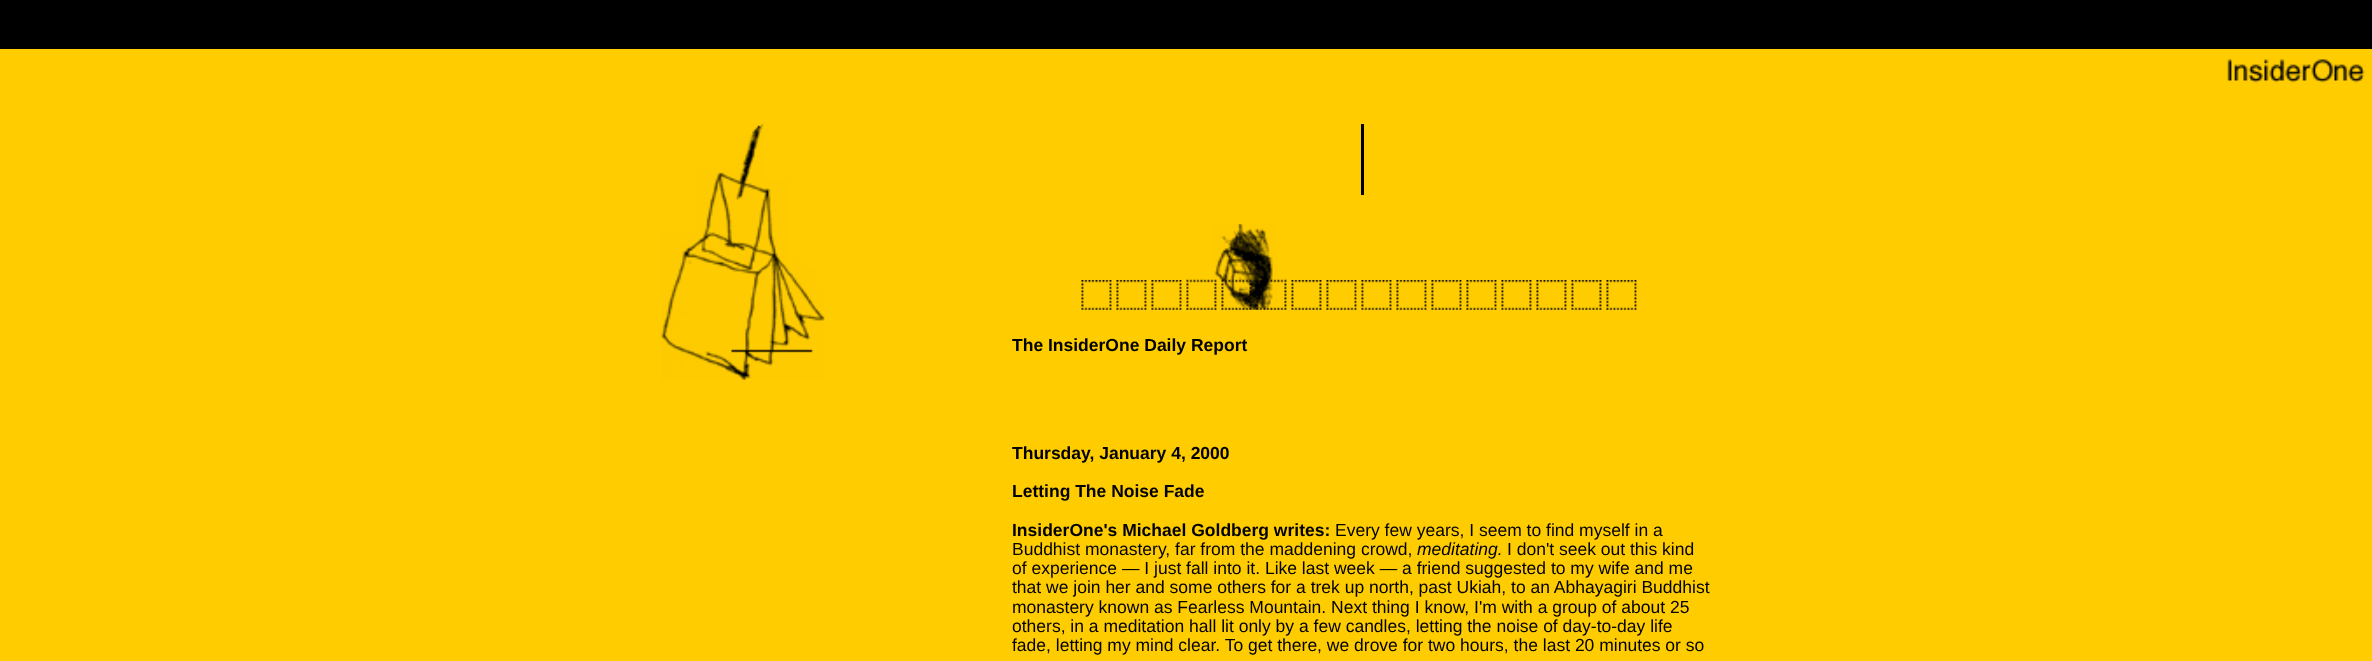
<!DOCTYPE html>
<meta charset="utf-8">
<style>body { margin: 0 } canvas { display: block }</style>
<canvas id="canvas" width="2372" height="661"></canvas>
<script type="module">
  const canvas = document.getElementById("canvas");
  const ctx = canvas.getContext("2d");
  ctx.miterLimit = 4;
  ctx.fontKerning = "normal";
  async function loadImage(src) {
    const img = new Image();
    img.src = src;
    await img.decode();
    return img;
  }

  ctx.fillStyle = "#ffcc00";
  ctx.fillRect(0, 0, 2372, 661);
  ctx.fillStyle = "#000000";
  ctx.fillRect(0, 0, 2372, 49);
  ctx.drawImage(await loadImage("img1.png"), 2227, 59, 138, 24);
  ctx.drawImage(await loadImage("img2.png"), 661, 124, 164, 256);
  ctx.fillRect(1361, 124, 3, 71);
  ctx.drawImage(await loadImage("img3.png"), 1081, 280, 31, 30);
  ctx.drawImage(await loadImage("img4.png"), 1116, 280, 31, 30);
  ctx.drawImage(await loadImage("img3.png"), 1151, 280, 31, 30);
  ctx.drawImage(await loadImage("img5.png"), 1186, 224, 101, 86);
  ctx.drawImage(await loadImage("img6.png"), 1291, 280, 31, 30);
  ctx.drawImage(await loadImage("img3.png"), 1326, 280, 31, 30);
  ctx.drawImage(await loadImage("img3.png"), 1361, 280, 31, 30);
  ctx.drawImage(await loadImage("img3.png"), 1396, 280, 31, 30);
  ctx.drawImage(await loadImage("img3.png"), 1431, 280, 31, 30);
  ctx.drawImage(await loadImage("img3.png"), 1466, 280, 31, 30);
  ctx.drawImage(await loadImage("img7.png"), 1501, 280, 31, 30);
  ctx.drawImage(await loadImage("img6.png"), 1536, 280, 31, 30);
  ctx.drawImage(await loadImage("img6.png"), 1571, 280, 31, 30);
  ctx.drawImage(await loadImage("img3.png"), 1606, 280, 31, 30);
  ctx.font = "bold 17.5px Liberation Sans";
  ctx.fillText("The InsiderOne Daily Report", 1012, 351);
  ctx.fillText("Thursday, January 4, 2000", 1012, 459);
  ctx.fillText("Letting The Noise Fade", 1012, 497);
  ctx.fillText("InsiderOne's Michael Goldberg writes:", 1012, 536);
  ctx.font = "17.5px Liberation Sans";
  ctx.fillText("Every few years, I seem to find myself in a", 1335, 536);
  ctx.fillText("Buddhist monastery, far from the maddening crowd,", 1012, 555);
  ctx.font = "italic 17.5px Liberation Sans";
  ctx.fillText("meditating.", 1417, 555);
  ctx.font = "17.5px Liberation Sans";
  ctx.fillText("I don't seek out this kind", 1507, 555);
  ctx.fillText("of experience — I just fall into it. Like last week — a friend suggested to my wife and me", 1012, 574);
  ctx.fillText("that we join her and some others for a trek up north, past Ukiah, to an Abhayagiri Buddhist", 1012, 593);
  ctx.fillText("monastery known as Fearless Mountain. Next thing I know, I'm with a group of about 25", 1012, 613);
  ctx.fillText("others, in a meditation hall lit only by a few candles, letting the noise of day-to-day life", 1012, 632);
  ctx.fillText("fade, letting my mind clear. To get there, we drove for two hours, the last 20 minutes or so", 1012, 651);
</script>
